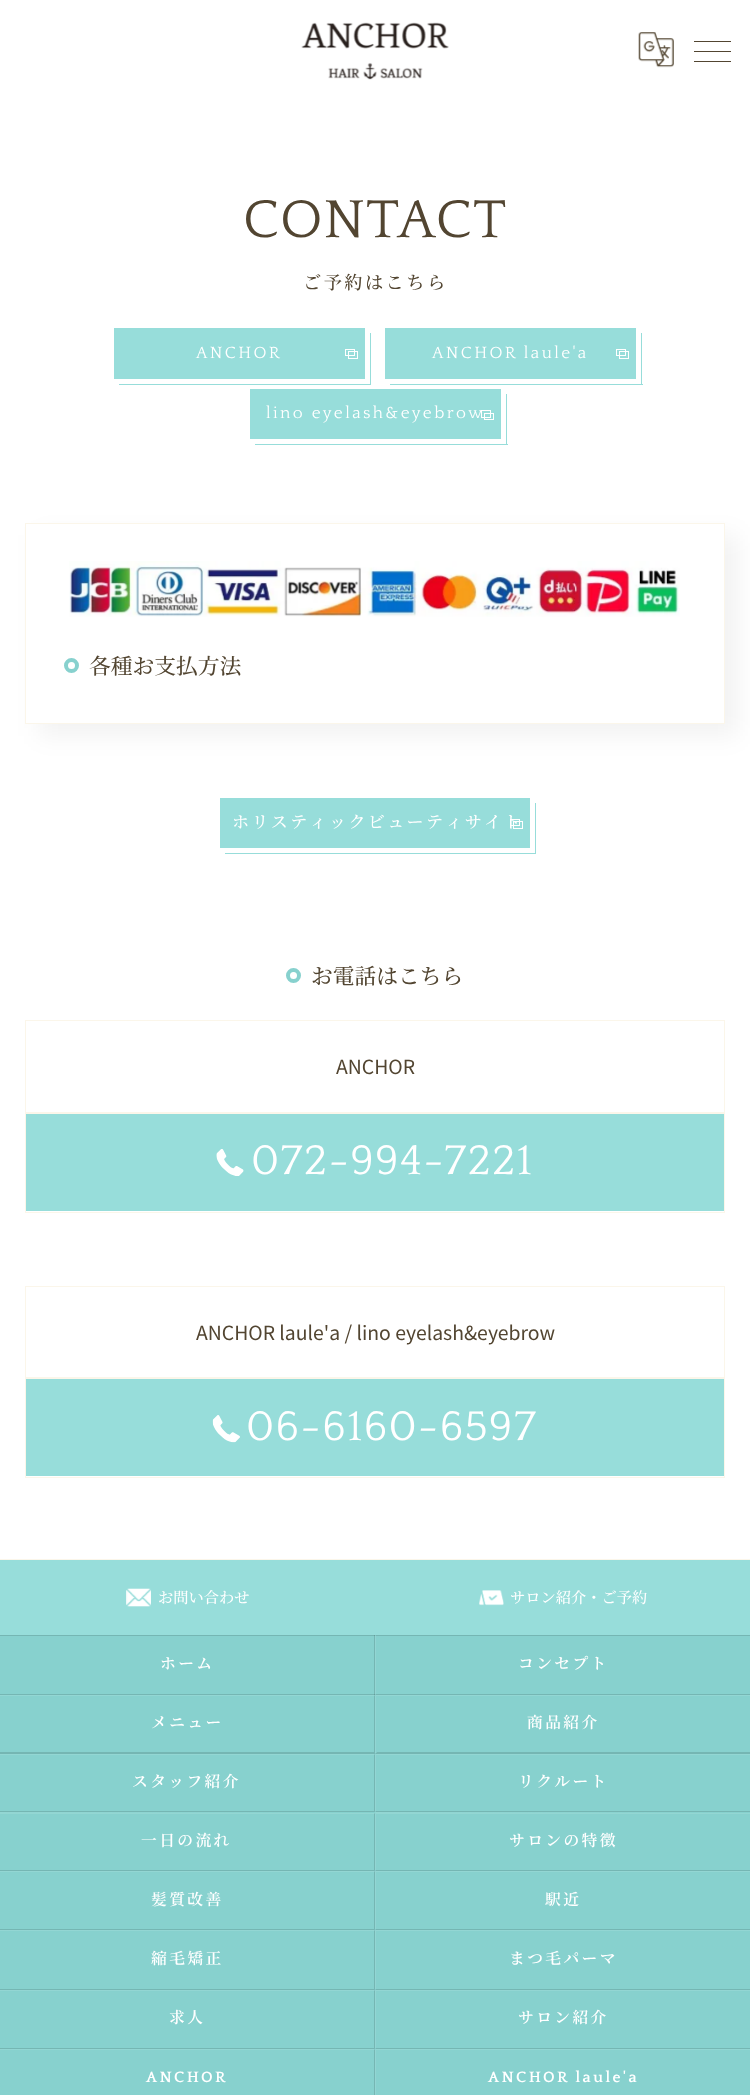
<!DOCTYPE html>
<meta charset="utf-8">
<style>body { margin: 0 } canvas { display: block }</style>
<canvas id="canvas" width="750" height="2095"></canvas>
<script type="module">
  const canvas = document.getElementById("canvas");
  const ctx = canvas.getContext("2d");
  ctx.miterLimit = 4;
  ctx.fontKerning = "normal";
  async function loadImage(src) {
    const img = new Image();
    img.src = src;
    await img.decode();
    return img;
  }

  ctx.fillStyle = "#ffffff";
  ctx.fillRect(0, 0, 750, 2095);
  ctx.drawImage(await loadImage("img1.png"), 301, 22, 148, 58);
  ctx.drawImage(await loadImage("img2.png"), 638, 32, 36, 36);
  ctx.fillStyle = "#524531";
  ctx.fillRect(694, 41, 37, 1);
  ctx.fillRect(694, 51, 37, 1);
  ctx.fillRect(694, 61, 37, 1);
  ctx.letterSpacing = "1.25px";
  ctx.font = "55.75px Quattrocento";
  ctx.fillText("CONTACT", 243, 237);
  ctx.letterSpacing = "2.4px";
  ctx.font = "500 18.25px Noto Serif JP";
  ctx.fillText("ご予約はこちら", 303, 289);
  ctx.fillStyle = "#97ddda";
  ctx.fillRect(114, 328, 251, 51);
  ctx.fillRect(370, 333, 1, 52);
  ctx.fillRect(119, 384, 252, 1);
  ctx.font = "17px Quattrocento";
  ctx.fillStyle = "#ffffff";
  ctx.fillText("ANCHOR", 196, 358);
  ctx.strokeStyle = "#ffffff";
  ctx.strokeRect(348.5, 351.5, 9, 7);
  ctx.strokeRect(345.5, 349.5, 9, 6);
  ctx.fillStyle = "#97ddda";
  ctx.fillRect(385, 328, 251, 51);
  ctx.fillRect(641, 333, 1, 52);
  ctx.fillRect(390, 384, 253, 1);
  ctx.fillStyle = "#ffffff";
  ctx.fillText("ANCHOR laule'a", 432, 358);
  ctx.strokeRect(619.5, 351.5, 9, 7);
  ctx.strokeRect(616.5, 349.5, 9, 6);
  ctx.fillStyle = "#97ddda";
  ctx.fillRect(250, 389, 251, 50);
  ctx.fillRect(506, 394, 1, 51);
  ctx.fillRect(255, 444, 253, 1);
  ctx.fillStyle = "#ffffff";
  ctx.fillText("lino eyelash&eyebrow", 266, 418);
  ctx.strokeRect(484.5, 413.5, 9, 6);
  ctx.strokeRect(481.5, 410.5, 9, 7);
  ctx.save();
  ctx.beginPath();
  ctx.moveTo(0, 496);
  ctx.lineTo(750, 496);
  ctx.lineTo(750, 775);
  ctx.lineTo(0, 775);
  ctx.closePath();
  ctx.moveTo(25, 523);
  ctx.lineTo(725, 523);
  ctx.lineTo(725, 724);
  ctx.lineTo(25, 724);
  ctx.closePath();
  ctx.clip("evenodd");
  ctx.fillStyle = "rgba(0, 0, 0, 0.05)";
  ctx.filter = "blur(12.5px)";
  ctx.beginPath();
  ctx.rect(38, 535, 700, 201);
  ctx.fill();
  ctx.filter = "none";
  ctx.restore();
  ctx.strokeStyle = "rgba(221, 189, 96, 0.13)";
  ctx.strokeRect(25.5, 523.5, 699, 200);
  ctx.drawImage(await loadImage("img3.png"), 69, 561, 611, 56);
  ctx.beginPath();
  ctx.arc(71.5, 665.5, 5.5, 0, Math.PI * 2);
  ctx.strokeStyle = "#87d1ce";
  ctx.lineWidth = 4;
  ctx.stroke();
  ctx.letterSpacing = "0px";
  ctx.font = "500 21.75px Noto Serif JP";
  ctx.fillStyle = "#524531";
  ctx.fillText("各種お支払方法", 89, 674);
  ctx.fillStyle = "#97ddda";
  ctx.fillRect(220, 798, 310, 50);
  ctx.fillRect(535, 803, 1, 51);
  ctx.fillRect(225, 853, 311, 1);
  ctx.letterSpacing = "2.4px";
  ctx.font = "500 17px Noto Serif JP";
  ctx.fillStyle = "#ffffff";
  ctx.fillText("ホリスティックビューティサイト", 232, 828);
  ctx.strokeStyle = "#ffffff";
  ctx.lineWidth = 1;
  ctx.strokeRect(513.5, 821.5, 9, 7);
  ctx.strokeRect(510.5, 819.5, 9, 6);
  ctx.beginPath();
  ctx.arc(293.5, 975.5, 5.5, 0, Math.PI * 2);
  ctx.strokeStyle = "#87d1ce";
  ctx.lineWidth = 4;
  ctx.stroke();
  ctx.letterSpacing = "0px";
  ctx.font = "500 21.75px Noto Serif JP";
  ctx.fillStyle = "#524531";
  ctx.fillText("お電話はこちら", 311, 984);
  ctx.strokeStyle = "#fbf6ea";
  ctx.lineWidth = 1;
  ctx.strokeRect(25.5, 1020.5, 699, 92);
  ctx.font = "19.4px Noto Sans JP";
  ctx.fillText("ANCHOR", 336, 1074);
  ctx.strokeRect(25.5, 1113.5, 699, 99);
  ctx.fillStyle = "#97ddda";
  ctx.fillRect(26, 1114, 698, 97);
  ctx.drawImage(await loadImage("img4.png"), 216, 1149, 28, 27);
  ctx.letterSpacing = "1.25px";
  ctx.font = "43.5px Quattrocento";
  ctx.fillStyle = "#ffffff";
  ctx.fillText("072-994-7221", 251, 1174);
  ctx.strokeRect(25.5, 1286.5, 699, 91);
  ctx.letterSpacing = "0px";
  ctx.font = "19.4px Noto Sans JP";
  ctx.fillStyle = "#524531";
  ctx.fillText("ANCHOR laule'a / lino eyelash&eyebrow", 196, 1340);
  ctx.strokeRect(25.5, 1378.5, 699, 99);
  ctx.fillStyle = "#97ddda";
  ctx.fillRect(26, 1379, 698, 97);
  ctx.drawImage(await loadImage("img5.png"), 212, 1415, 28, 28);
  ctx.letterSpacing = "1.25px";
  ctx.font = "43.5px Quattrocento";
  ctx.fillStyle = "#ffffff";
  ctx.fillText("06-6160-6597", 246, 1440);
  ctx.fillStyle = "#87d1ce";
  ctx.fillRect(0, 1635, 750, 460);
  ctx.fillStyle = "#75b6b3";
  ctx.fillRect(0, 1694, 375, 1);
  ctx.fillRect(374, 1635, 1, 60);
  ctx.fillStyle = "#669e9c";
  ctx.fillRect(374, 1694, 1, 1);
  ctx.fillStyle = "#fbf6ea";
  ctx.fillRect(0, 1559, 750, 1);
  ctx.fillStyle = "#97ddda";
  ctx.fillRect(0, 1560, 750, 75);
  ctx.drawImage(await loadImage("img6.png"), 126, 1588, 25, 19);
  ctx.letterSpacing = "0px";
  ctx.font = "500 15.25px Noto Serif JP";
  ctx.fillStyle = "#ffffff";
  ctx.fillText("お問い合わせ", 158, 1603);
  ctx.drawImage(await loadImage("img7.png"), 479, 1590, 25, 16);
  ctx.fillText("サロン紹介・ご予約", 510, 1603);
  ctx.fillStyle = "#75b6b3";
  ctx.fillRect(0, 1635, 375, 1);
  ctx.fillStyle = "#669e9c";
  ctx.fillRect(374, 1635, 1, 1);
  ctx.letterSpacing = "2.4px";
  ctx.font = "600 15.75px Noto Serif JP";
  ctx.fillStyle = "#ffffff";
  ctx.fillText("ホーム", 160, 1669);
  ctx.fillStyle = "#75b6b3";
  ctx.beginPath();
  ctx.moveTo(375, 1635);
  ctx.lineTo(376, 1636);
  ctx.lineTo(750, 1636);
  ctx.lineTo(750, 1635);
  ctx.closePath();
  ctx.fill();
  ctx.beginPath();
  ctx.moveTo(375, 1695);
  ctx.lineTo(376, 1694);
  ctx.lineTo(750, 1694);
  ctx.lineTo(750, 1695);
  ctx.closePath();
  ctx.moveTo(750, 1694);
  ctx.lineTo(750, 1692);
  ctx.closePath();
  ctx.fill("evenodd");
  ctx.fillStyle = "rgba(255, 255, 255, 0.1)";
  ctx.beginPath();
  ctx.moveTo(376, 1636);
  ctx.lineTo(375, 1635);
  ctx.lineTo(375, 1695);
  ctx.lineTo(376, 1694);
  ctx.closePath();
  ctx.fill();
  ctx.fillStyle = "#ffffff";
  ctx.fillText("コンセプト", 518, 1669);
  ctx.fillStyle = "#93d6d3";
  ctx.beginPath();
  ctx.moveTo(0, 1695);
  ctx.lineTo(0, 1696);
  ctx.lineTo(374, 1696);
  ctx.lineTo(375, 1695);
  ctx.closePath();
  ctx.fill();
  ctx.fillStyle = "rgba(0, 0, 0, 0.13)";
  ctx.beginPath();
  ctx.moveTo(375, 1695);
  ctx.lineTo(375, 1754);
  ctx.lineTo(373, 1752);
  ctx.lineTo(374, 1752);
  ctx.lineTo(374, 1696);
  ctx.closePath();
  ctx.fill();
  ctx.beginPath();
  ctx.moveTo(0, 1754);
  ctx.lineTo(0, 1752);
  ctx.lineTo(373, 1752);
  ctx.lineTo(375, 1754);
  ctx.closePath();
  ctx.fill();
  ctx.fillStyle = "#ffffff";
  ctx.fillText("メニュー", 151, 1728);
  ctx.fillStyle = "#93d6d3";
  ctx.beginPath();
  ctx.moveTo(375, 1695);
  ctx.lineTo(376, 1696);
  ctx.lineTo(750, 1696);
  ctx.lineTo(750, 1695);
  ctx.closePath();
  ctx.fill();
  ctx.fillStyle = "#75b6b3";
  ctx.beginPath();
  ctx.moveTo(375, 1754);
  ctx.lineTo(377, 1752);
  ctx.lineTo(750, 1752);
  ctx.lineTo(750, 1754);
  ctx.closePath();
  ctx.moveTo(750, 1752);
  ctx.lineTo(750, 1751);
  ctx.closePath();
  ctx.fill("evenodd");
  ctx.fillStyle = "rgba(255, 255, 255, 0.1)";
  ctx.beginPath();
  ctx.moveTo(376, 1696);
  ctx.lineTo(375, 1695);
  ctx.lineTo(375, 1754);
  ctx.lineTo(377, 1752);
  ctx.lineTo(376, 1752);
  ctx.closePath();
  ctx.fill();
  ctx.fillStyle = "#ffffff";
  ctx.fillText("商品紹介", 527, 1728);
  ctx.fillStyle = "#93d6d3";
  ctx.beginPath();
  ctx.moveTo(0, 1755);
  ctx.lineTo(374, 1755);
  ctx.lineTo(375, 1754);
  ctx.lineTo(0, 1754);
  ctx.closePath();
  ctx.fill();
  ctx.fillStyle = "rgba(0, 0, 0, 0.13)";
  ctx.beginPath();
  ctx.moveTo(374, 1755);
  ctx.lineTo(375, 1754);
  ctx.lineTo(375, 1812);
  ctx.lineTo(374, 1811);
  ctx.closePath();
  ctx.fill();
  ctx.beginPath();
  ctx.moveTo(0, 1812);
  ctx.lineTo(0, 1811);
  ctx.lineTo(374, 1811);
  ctx.lineTo(375, 1812);
  ctx.lineTo(329, 1812);
  ctx.lineTo(312, 1812);
  ctx.lineTo(63, 1812);
  ctx.lineTo(45, 1812);
  ctx.closePath();
  ctx.fill();
  ctx.fillStyle = "#ffffff";
  ctx.fillText("スタッフ紹介", 132, 1787);
  ctx.fillStyle = "#93d6d3";
  ctx.beginPath();
  ctx.moveTo(376, 1755);
  ctx.lineTo(375, 1754);
  ctx.lineTo(750, 1754);
  ctx.lineTo(750, 1755);
  ctx.closePath();
  ctx.fill();
  ctx.fillStyle = "#75b6b3";
  ctx.beginPath();
  ctx.moveTo(375, 1812);
  ctx.lineTo(376, 1811);
  ctx.lineTo(750, 1811);
  ctx.lineTo(750, 1812);
  ctx.lineTo(704, 1812);
  ctx.lineTo(687, 1812);
  ctx.lineTo(438, 1812);
  ctx.lineTo(420, 1812);
  ctx.closePath();
  ctx.moveTo(750, 1811);
  ctx.lineTo(750, 1810);
  ctx.closePath();
  ctx.fill("evenodd");
  ctx.fillStyle = "rgba(255, 255, 255, 0.1)";
  ctx.beginPath();
  ctx.moveTo(375, 1754);
  ctx.lineTo(376, 1755);
  ctx.lineTo(376, 1811);
  ctx.lineTo(375, 1812);
  ctx.closePath();
  ctx.fill();
  ctx.fillStyle = "#ffffff";
  ctx.fillText("リクルート", 518, 1787);
  ctx.fillStyle = "#93d6d3";
  ctx.beginPath();
  ctx.moveTo(0, 1814);
  ctx.lineTo(374, 1814);
  ctx.lineTo(375, 1813);
  ctx.lineTo(0, 1812);
  ctx.closePath();
  ctx.fill();
  ctx.fillStyle = "rgba(0, 0, 0, 0.13)";
  ctx.beginPath();
  ctx.moveTo(374, 1870);
  ctx.lineTo(374, 1814);
  ctx.lineTo(375, 1813);
  ctx.lineTo(375, 1871);
  ctx.closePath();
  ctx.fill();
  ctx.beginPath();
  ctx.moveTo(0, 1871);
  ctx.lineTo(0, 1870);
  ctx.lineTo(374, 1870);
  ctx.lineTo(375, 1871);
  ctx.closePath();
  ctx.fill();
  ctx.fillStyle = "#ffffff";
  ctx.fillText("一日の流れ", 141, 1846);
  ctx.fillStyle = "#93d6d3";
  ctx.beginPath();
  ctx.moveTo(375, 1812);
  ctx.lineTo(750, 1813);
  ctx.lineTo(750, 1814);
  ctx.lineTo(376, 1814);
  ctx.closePath();
  ctx.fill();
  ctx.fillStyle = "#75b6b3";
  ctx.beginPath();
  ctx.moveTo(375, 1871);
  ctx.lineTo(376, 1870);
  ctx.lineTo(750, 1870);
  ctx.lineTo(750, 1871);
  ctx.closePath();
  ctx.moveTo(750, 1870);
  ctx.lineTo(750, 1868);
  ctx.closePath();
  ctx.fill("evenodd");
  ctx.fillStyle = "rgba(255, 255, 255, 0.1)";
  ctx.beginPath();
  ctx.moveTo(376, 1814);
  ctx.lineTo(375, 1812);
  ctx.lineTo(375, 1871);
  ctx.lineTo(376, 1870);
  ctx.closePath();
  ctx.fill();
  ctx.fillStyle = "#ffffff";
  ctx.fillText("サロンの特徴", 509, 1846);
  ctx.fillStyle = "#93d6d3";
  ctx.beginPath();
  ctx.moveTo(0, 1872);
  ctx.lineTo(374, 1872);
  ctx.lineTo(375, 1871);
  ctx.lineTo(0, 1871);
  ctx.closePath();
  ctx.fill();
  ctx.fillStyle = "rgba(0, 0, 0, 0.13)";
  ctx.beginPath();
  ctx.moveTo(375, 1871);
  ctx.lineTo(375, 1930);
  ctx.lineTo(374, 1929);
  ctx.lineTo(374, 1872);
  ctx.closePath();
  ctx.fill();
  ctx.beginPath();
  ctx.moveTo(0, 1929);
  ctx.lineTo(0, 1930);
  ctx.lineTo(375, 1930);
  ctx.lineTo(374, 1929);
  ctx.closePath();
  ctx.fill();
  ctx.fillStyle = "#ffffff";
  ctx.fillText("髪質改善", 151, 1905);
  ctx.fillStyle = "#93d6d3";
  ctx.beginPath();
  ctx.moveTo(376, 1872);
  ctx.lineTo(375, 1871);
  ctx.lineTo(750, 1871);
  ctx.lineTo(750, 1872);
  ctx.closePath();
  ctx.fill();
  ctx.fillStyle = "#75b6b3";
  ctx.beginPath();
  ctx.moveTo(375, 1930);
  ctx.lineTo(376, 1929);
  ctx.lineTo(750, 1929);
  ctx.lineTo(750, 1930);
  ctx.closePath();
  ctx.moveTo(750, 1929);
  ctx.lineTo(750, 1927);
  ctx.closePath();
  ctx.fill("evenodd");
  ctx.fillStyle = "rgba(255, 255, 255, 0.1)";
  ctx.beginPath();
  ctx.moveTo(375, 1871);
  ctx.lineTo(375, 1930);
  ctx.lineTo(376, 1929);
  ctx.lineTo(376, 1872);
  ctx.closePath();
  ctx.fill();
  ctx.fillStyle = "#ffffff";
  ctx.fillText("駅近", 545, 1905);
  ctx.fillStyle = "#93d6d3";
  ctx.beginPath();
  ctx.moveTo(0, 1930);
  ctx.lineTo(0, 1931);
  ctx.lineTo(374, 1931);
  ctx.lineTo(375, 1930);
  ctx.closePath();
  ctx.fill();
  ctx.fillStyle = "rgba(0, 0, 0, 0.13)";
  ctx.beginPath();
  ctx.moveTo(375, 1930);
  ctx.lineTo(375, 1990);
  ctx.lineTo(374, 1989);
  ctx.lineTo(374, 1931);
  ctx.closePath();
  ctx.fill();
  ctx.beginPath();
  ctx.moveTo(0, 1987);
  ctx.lineTo(0, 1990);
  ctx.lineTo(375, 1990);
  ctx.lineTo(374, 1989);
  ctx.lineTo(0, 1989);
  ctx.closePath();
  ctx.fill();
  ctx.fillStyle = "#ffffff";
  ctx.fillText("縮毛矯正", 151, 1964);
  ctx.fillStyle = "#93d6d3";
  ctx.beginPath();
  ctx.moveTo(375, 1930);
  ctx.lineTo(376, 1931);
  ctx.lineTo(750, 1931);
  ctx.lineTo(750, 1930);
  ctx.closePath();
  ctx.fill();
  ctx.fillStyle = "#75b6b3";
  ctx.beginPath();
  ctx.moveTo(375, 1990);
  ctx.lineTo(376, 1989);
  ctx.lineTo(750, 1989);
  ctx.lineTo(750, 1990);
  ctx.closePath();
  ctx.moveTo(750, 1989);
  ctx.lineTo(750, 1987);
  ctx.closePath();
  ctx.fill("evenodd");
  ctx.fillStyle = "rgba(255, 255, 255, 0.1)";
  ctx.beginPath();
  ctx.moveTo(376, 1931);
  ctx.lineTo(375, 1930);
  ctx.lineTo(375, 1990);
  ctx.lineTo(376, 1989);
  ctx.closePath();
  ctx.fill();
  ctx.fillStyle = "#ffffff";
  ctx.fillText("まつ毛パーマ", 509, 1964);
  ctx.fillStyle = "#93d6d3";
  ctx.beginPath();
  ctx.moveTo(0, 1990);
  ctx.lineTo(0, 1991);
  ctx.lineTo(374, 1991);
  ctx.lineTo(375, 1990);
  ctx.closePath();
  ctx.fill();
  ctx.fillStyle = "rgba(0, 0, 0, 0.13)";
  ctx.beginPath();
  ctx.moveTo(375, 1990);
  ctx.lineTo(375, 2049);
  ctx.lineTo(374, 2048);
  ctx.lineTo(374, 1991);
  ctx.closePath();
  ctx.fill();
  ctx.beginPath();
  ctx.moveTo(0, 2048);
  ctx.lineTo(0, 2049);
  ctx.lineTo(375, 2049);
  ctx.lineTo(374, 2048);
  ctx.closePath();
  ctx.fill();
  ctx.fillStyle = "#ffffff";
  ctx.fillText("求人", 169, 2023);
  ctx.fillStyle = "#93d6d3";
  ctx.beginPath();
  ctx.moveTo(375, 1990);
  ctx.lineTo(376, 1991);
  ctx.lineTo(750, 1991);
  ctx.lineTo(750, 1990);
  ctx.closePath();
  ctx.fill();
  ctx.fillStyle = "#75b6b3";
  ctx.beginPath();
  ctx.moveTo(375, 2049);
  ctx.lineTo(376, 2048);
  ctx.lineTo(750, 2048);
  ctx.lineTo(750, 2049);
  ctx.closePath();
  ctx.moveTo(750, 2048);
  ctx.lineTo(750, 2046);
  ctx.closePath();
  ctx.fill("evenodd");
  ctx.fillStyle = "rgba(255, 255, 255, 0.1)";
  ctx.beginPath();
  ctx.moveTo(376, 1991);
  ctx.lineTo(375, 1990);
  ctx.lineTo(375, 2049);
  ctx.lineTo(376, 2048);
  ctx.closePath();
  ctx.fill();
  ctx.fillStyle = "#ffffff";
  ctx.fillText("サロン紹介", 518, 2023);
  ctx.fillStyle = "#93d6d3";
  ctx.beginPath();
  ctx.moveTo(0, 2050);
  ctx.lineTo(374, 2050);
  ctx.lineTo(375, 2049);
  ctx.lineTo(0, 2049);
  ctx.closePath();
  ctx.fill();
  ctx.fillStyle = "rgba(0, 0, 0, 0.13)";
  ctx.beginPath();
  ctx.moveTo(374, 2050);
  ctx.lineTo(375, 2049);
  ctx.lineTo(375, 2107);
  ctx.lineTo(374, 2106);
  ctx.closePath();
  ctx.fill();
  ctx.font = "bold 15.75px Quattrocento";
  ctx.fillStyle = "#ffffff";
  ctx.fillText("ANCHOR", 146, 2082);
  ctx.fillStyle = "#93d6d3";
  ctx.beginPath();
  ctx.moveTo(376, 2050);
  ctx.lineTo(375, 2049);
  ctx.lineTo(750, 2049);
  ctx.lineTo(750, 2050);
  ctx.closePath();
  ctx.fill();
  ctx.fillStyle = "rgba(255, 255, 255, 0.1)";
  ctx.beginPath();
  ctx.moveTo(375, 2049);
  ctx.lineTo(376, 2050);
  ctx.lineTo(376, 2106);
  ctx.lineTo(375, 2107);
  ctx.closePath();
  ctx.fill();
  ctx.fillStyle = "#ffffff";
  ctx.fillText("ANCHOR laule'a", 488, 2082);
</script>
